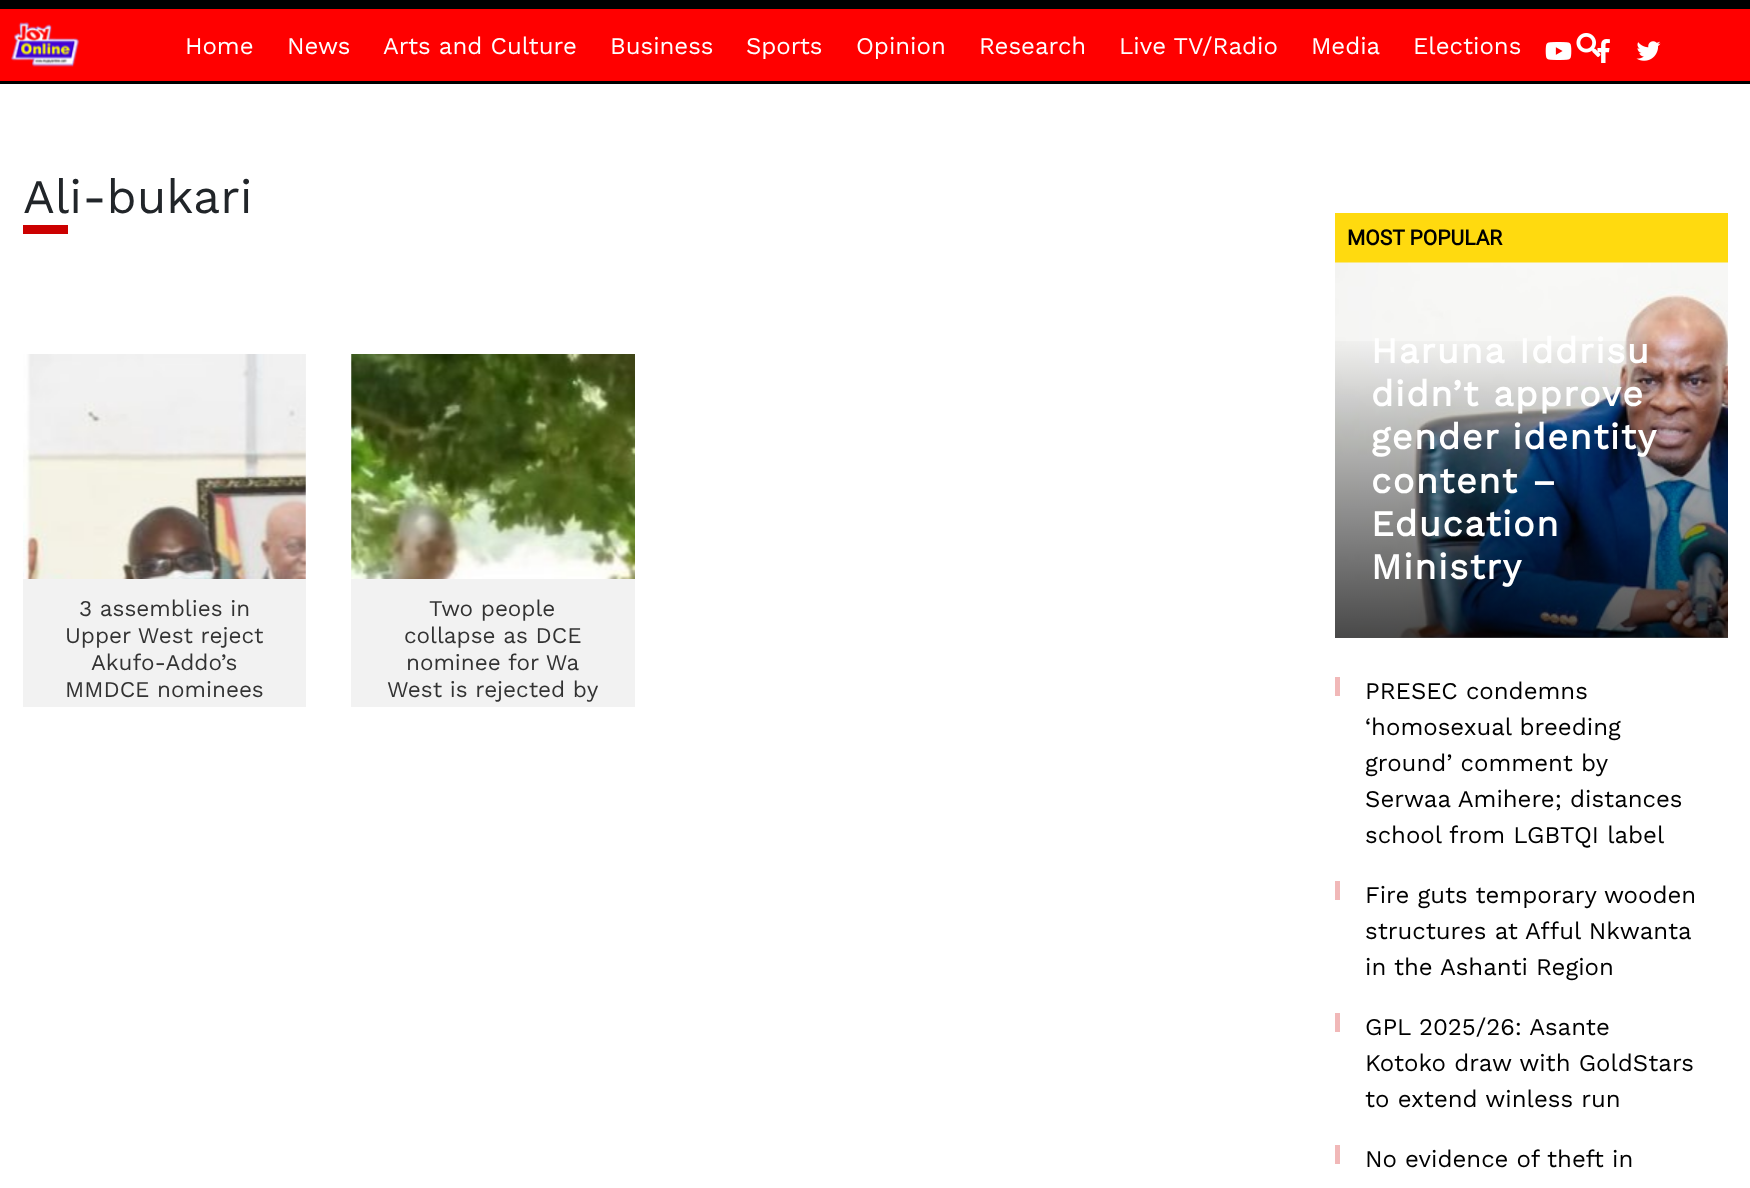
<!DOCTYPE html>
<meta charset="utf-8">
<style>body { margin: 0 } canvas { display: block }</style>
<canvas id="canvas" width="1750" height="1188"></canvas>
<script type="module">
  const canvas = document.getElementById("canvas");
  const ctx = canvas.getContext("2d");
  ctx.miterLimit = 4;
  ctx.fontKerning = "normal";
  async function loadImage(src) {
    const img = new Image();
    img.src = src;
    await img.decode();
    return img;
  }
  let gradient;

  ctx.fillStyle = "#ffffff";
  ctx.fillRect(0, 0, 1750, 1188);
  ctx.fillStyle = "#ff0000";
  ctx.fillRect(0, 9, 1750, 72);
  ctx.fillStyle = "#000000";
  ctx.fillRect(0, 0, 1750, 9);
  ctx.fillRect(0, 81, 1750, 3);
  ctx.drawImage(await loadImage("img1.png"), 11, 22, 69, 45);
  ctx.font = "24px Work Sans";
  ctx.fillStyle = "#ffffff";
  ctx.fillText("Home", 185, 54);
  ctx.fillText("News", 287, 54);
  ctx.fillText("Arts and Culture", 383, 54);
  ctx.fillText("Business", 610, 54);
  ctx.fillText("Sports", 746, 54);
  ctx.fillText("Opinion", 856, 54);
  ctx.fillText("Research", 979, 54);
  ctx.fillText("Live TV/Radio", 1119, 54);
  ctx.fillText("Media", 1311, 54);
  ctx.fillText("Elections", 1413, 54);
  ctx.drawImage(await loadImage("img2.png"), 1576, 33, 25, 24);
  ctx.drawImage(await loadImage("img3.png"), 1545, 42, 27, 18);
  ctx.drawImage(await loadImage("img4.png"), 1597, 39, 13, 24);
  ctx.drawImage(await loadImage("img5.png"), 1636, 41, 25, 20);
  ctx.font = "48px Work Sans";
  ctx.fillStyle = "#212529";
  ctx.fillText("Ali-bukari", 23, 213);
  ctx.fillStyle = "#cc0000";
  ctx.fillRect(23, 225, 45, 9);
  ctx.fillStyle = "#f2f2f2";
  ctx.fillRect(23, 354, 283, 353);
  ctx.drawImage(await loadImage("img6.png"), 23, 354, 283, 225);
  ctx.font = "22.5px Work Sans";
  ctx.fillStyle = "#333333";
  ctx.fillText("3 assemblies in", 79, 616);
  ctx.fillText("Upper West reject", 65, 643);
  ctx.fillText("Akufo-Addo’s", 91, 670);
  ctx.fillText("MMDCE nominees", 65, 697);
  ctx.fillStyle = "#f2f2f2";
  ctx.fillRect(351, 354, 284, 353);
  ctx.drawImage(await loadImage("img7.png"), 351, 354, 284, 225);
  ctx.fillStyle = "#333333";
  ctx.fillText("Two people", 429, 616);
  ctx.fillText("collapse as DCE", 404, 643);
  ctx.fillText("nominee for Wa", 406, 670);
  ctx.fillText("West is rejected by", 387, 697);
  ctx.fillStyle = "#ffda0f";
  ctx.fillRect(1335, 213, 393, 50);
  ctx.font = "bold 21px Roboto";
  ctx.fillStyle = "#000000";
  ctx.fillText("MOST POPULAR", 1347, 245);
  ctx.drawImage(await loadImage("img8.png"), 1335, 262, 393, 376);
  gradient = ctx.createLinearGradient(1532, 294, 1532, 638);
  gradient.addColorStop(0, "rgba(0, 0, 0, 0)");
  gradient.addColorStop(0.11, "rgba(0, 0, 0, 0)");
  gradient.addColorStop(1, "rgba(0, 0, 0, 0.7)");
  ctx.fillStyle = gradient;
  ctx.fillRect(1335, 341, 393, 297);
  ctx.letterSpacing = "1.5px";
  ctx.font = "bold 36px Work Sans";
  ctx.fillStyle = "#ffffff";
  ctx.fillText("Haruna Iddrisu", 1371, 363);
  ctx.fillText("didn’t approve", 1371, 406);
  ctx.wordSpacing = "-1px";
  ctx.fillText("gender identity", 1371, 449);
  ctx.wordSpacing = "0px";
  ctx.fillText("content –", 1371, 493);
  ctx.fillText("Education", 1371, 536);
  ctx.fillText("Ministry", 1371, 579);
  ctx.fillStyle = "#f1b8b8";
  ctx.fillRect(1335, 677, 5, 19);
  ctx.letterSpacing = "0px";
  ctx.font = "24px Work Sans";
  ctx.fillStyle = "#000000";
  ctx.fillText("PRESEC condemns", 1365, 699);
  ctx.fillText("‘homosexual breeding", 1365, 735);
  ctx.fillText("ground’ comment by", 1365, 771);
  ctx.fillText("Serwaa Amihere; distances", 1365, 807);
  ctx.fillText("school from LGBTQI label", 1365, 843);
  ctx.fillStyle = "#f1b8b8";
  ctx.fillRect(1335, 881, 5, 19);
  ctx.fillStyle = "#000000";
  ctx.fillText("Fire guts temporary wooden", 1365, 903);
  ctx.fillText("structures at Afful Nkwanta", 1365, 939);
  ctx.fillText("in the Ashanti Region", 1365, 975);
  ctx.fillStyle = "#f1b8b8";
  ctx.fillRect(1335, 1013, 5, 19);
  ctx.fillStyle = "#000000";
  ctx.fillText("GPL 2025/26: Asante", 1365, 1035);
  ctx.fillText("Kotoko draw with GoldStars", 1365, 1071);
  ctx.fillText("to extend winless run", 1365, 1107);
  ctx.fillStyle = "#f1b8b8";
  ctx.fillRect(1335, 1145, 5, 19);
  ctx.fillStyle = "#000000";
  ctx.fillText("No evidence of theft in", 1365, 1167);
</script>
